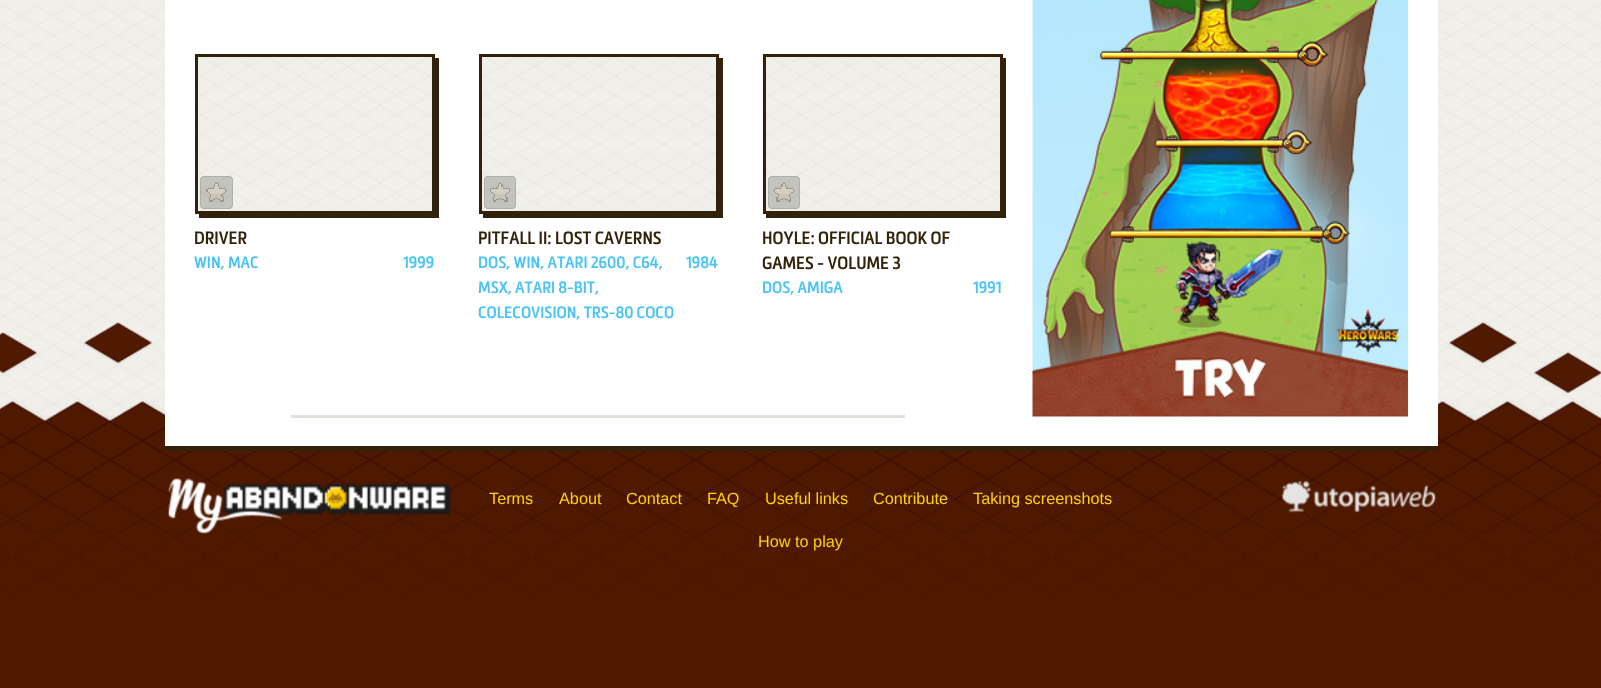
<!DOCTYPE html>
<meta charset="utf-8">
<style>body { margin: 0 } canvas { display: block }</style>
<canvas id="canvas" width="1601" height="688"></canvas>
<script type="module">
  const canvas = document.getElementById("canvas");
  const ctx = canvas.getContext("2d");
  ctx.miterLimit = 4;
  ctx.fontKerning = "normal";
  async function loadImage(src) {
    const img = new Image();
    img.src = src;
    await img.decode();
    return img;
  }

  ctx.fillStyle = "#efeee9";
  ctx.fillRect(0, 0, 1601, 688);
  ctx.drawImage(await loadImage("img1.png"), 0, 3, 1601, 419);
  ctx.drawImage(await loadImage("img2.png"), 0, 322, 1601, 366);
  ctx.fillStyle = "#ffffff";
  ctx.fillRect(165, 0, 1273, 446);
  ctx.fillStyle = "#32220b";
  ctx.fillRect(165, 446, 1273, 5);
  ctx.beginPath();
  ctx.moveTo(199, 214);
  ctx.lineTo(199, 218);
  ctx.lineTo(439, 218);
  ctx.lineTo(439, 58);
  ctx.lineTo(435, 58);
  ctx.lineTo(435, 214);
  ctx.closePath();
  ctx.fill();
  ctx.drawImage(await loadImage("img3.png"), 198, 57, 234, 154);
  ctx.strokeStyle = "#32220b";
  ctx.lineWidth = 3;
  ctx.strokeRect(196.5, 55.5, 237, 157);
  ctx.fillStyle = "rgba(0, 0, 0, 0.18)";
  ctx.beginPath();
  ctx.roundRect(200, 176, 33, 33, 4);
  ctx.fill();
  ctx.beginPath();
  ctx.roundRect(200.5, 176.5, 32, 32, 3.5);
  ctx.strokeStyle = "rgba(0, 0, 0, 0.1)";
  ctx.lineWidth = 1;
  ctx.stroke();
  ctx.drawImage(await loadImage("img4.png"), 206, 182, 21, 20);
  ctx.font = "17.5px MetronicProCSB";
  ctx.fillStyle = "#322209";
  ctx.fillText("DRIVER", 194, 244);
  ctx.font = "16.25px MetronicProCSB";
  ctx.fillStyle = "#4ac4f7";
  ctx.fillText("WIN, MAC", 194, 268);
  ctx.fillText("1999", 403, 268);
  ctx.fillStyle = "#32220b";
  ctx.beginPath();
  ctx.moveTo(483, 214);
  ctx.lineTo(483, 218);
  ctx.lineTo(723, 218);
  ctx.lineTo(723, 58);
  ctx.lineTo(719, 58);
  ctx.lineTo(719, 214);
  ctx.closePath();
  ctx.fill();
  ctx.drawImage(await loadImage("img5.png"), 478, 54, 238, 160);
  ctx.strokeStyle = "#32220b";
  ctx.lineWidth = 3;
  ctx.strokeRect(480.5, 55.5, 237, 157);
  ctx.fillStyle = "rgba(0, 0, 0, 0.18)";
  ctx.beginPath();
  ctx.roundRect(484, 176, 32, 33, 4);
  ctx.fill();
  ctx.beginPath();
  ctx.roundRect(484.5, 176.5, 31, 32, 3.5);
  ctx.strokeStyle = "rgba(0, 0, 0, 0.1)";
  ctx.lineWidth = 1;
  ctx.stroke();
  ctx.drawImage(await loadImage("img6.png"), 490, 182, 20, 20);
  ctx.font = "17.5px MetronicProCSB";
  ctx.fillStyle = "#322209";
  ctx.fillText("PITFALL II: LOST CAVERNS", 478, 244);
  ctx.font = "16.25px MetronicProCSB";
  ctx.fillStyle = "#4ac4f7";
  ctx.fillText("DOS, WIN, ATARI 2600, C64,", 478, 268);
  ctx.fillText("MSX, ATARI 8-BIT,", 478, 293);
  ctx.fillText("COLECOVISION, TRS-80 COCO", 478, 318);
  ctx.fillText("1984", 686, 268);
  ctx.fillStyle = "#32220b";
  ctx.beginPath();
  ctx.moveTo(766, 214);
  ctx.lineTo(766, 218);
  ctx.lineTo(1006, 218);
  ctx.lineTo(1006, 58);
  ctx.lineTo(1002, 58);
  ctx.lineTo(1002, 214);
  ctx.closePath();
  ctx.fill();
  ctx.drawImage(await loadImage("img7.png"), 762, 54, 238, 160);
  ctx.strokeStyle = "#32220b";
  ctx.lineWidth = 3;
  ctx.strokeRect(764.5, 55.5, 237, 157);
  ctx.fillStyle = "rgba(0, 0, 0, 0.18)";
  ctx.beginPath();
  ctx.roundRect(768, 176, 32, 33, 4);
  ctx.fill();
  ctx.beginPath();
  ctx.roundRect(768.5, 176.5, 31, 32, 3.5);
  ctx.strokeStyle = "rgba(0, 0, 0, 0.1)";
  ctx.lineWidth = 1;
  ctx.stroke();
  ctx.drawImage(await loadImage("img8.png"), 773, 182, 21, 20);
  ctx.font = "17.5px MetronicProCSB";
  ctx.fillStyle = "#322209";
  ctx.fillText("HOYLE: OFFICIAL BOOK OF", 762, 244);
  ctx.fillText("GAMES - VOLUME 3", 762, 269);
  ctx.font = "16.25px MetronicProCSB";
  ctx.fillStyle = "#4ac4f7";
  ctx.fillText("DOS, AMIGA", 762, 293);
  ctx.fillText("1991", 973, 293);
  ctx.fillStyle = "#e0dfda";
  ctx.fillRect(291, 415, 614, 3);
  ctx.drawImage(await loadImage("img9.png"), 1032, 0, 376, 417);
  ctx.drawImage(await loadImage("img10.png"), 168, 478, 283, 56);
  ctx.font = "16.25px Liberation Sans";
  ctx.fillStyle = "#ffd102";
  ctx.fillText("Terms", 489, 504);
  ctx.fillText("About", 559, 504);
  ctx.fillText("Contact", 626, 504);
  ctx.fillText("FAQ", 707, 504);
  ctx.fillText("Useful links", 765, 504);
  ctx.fillText("Contribute", 873, 504);
  ctx.fillText("Taking screenshots", 973, 504);
  ctx.fillText("How to play", 758, 547);
  ctx.drawImage(await loadImage("img11.png"), 1281, 480, 155, 33);
</script>
